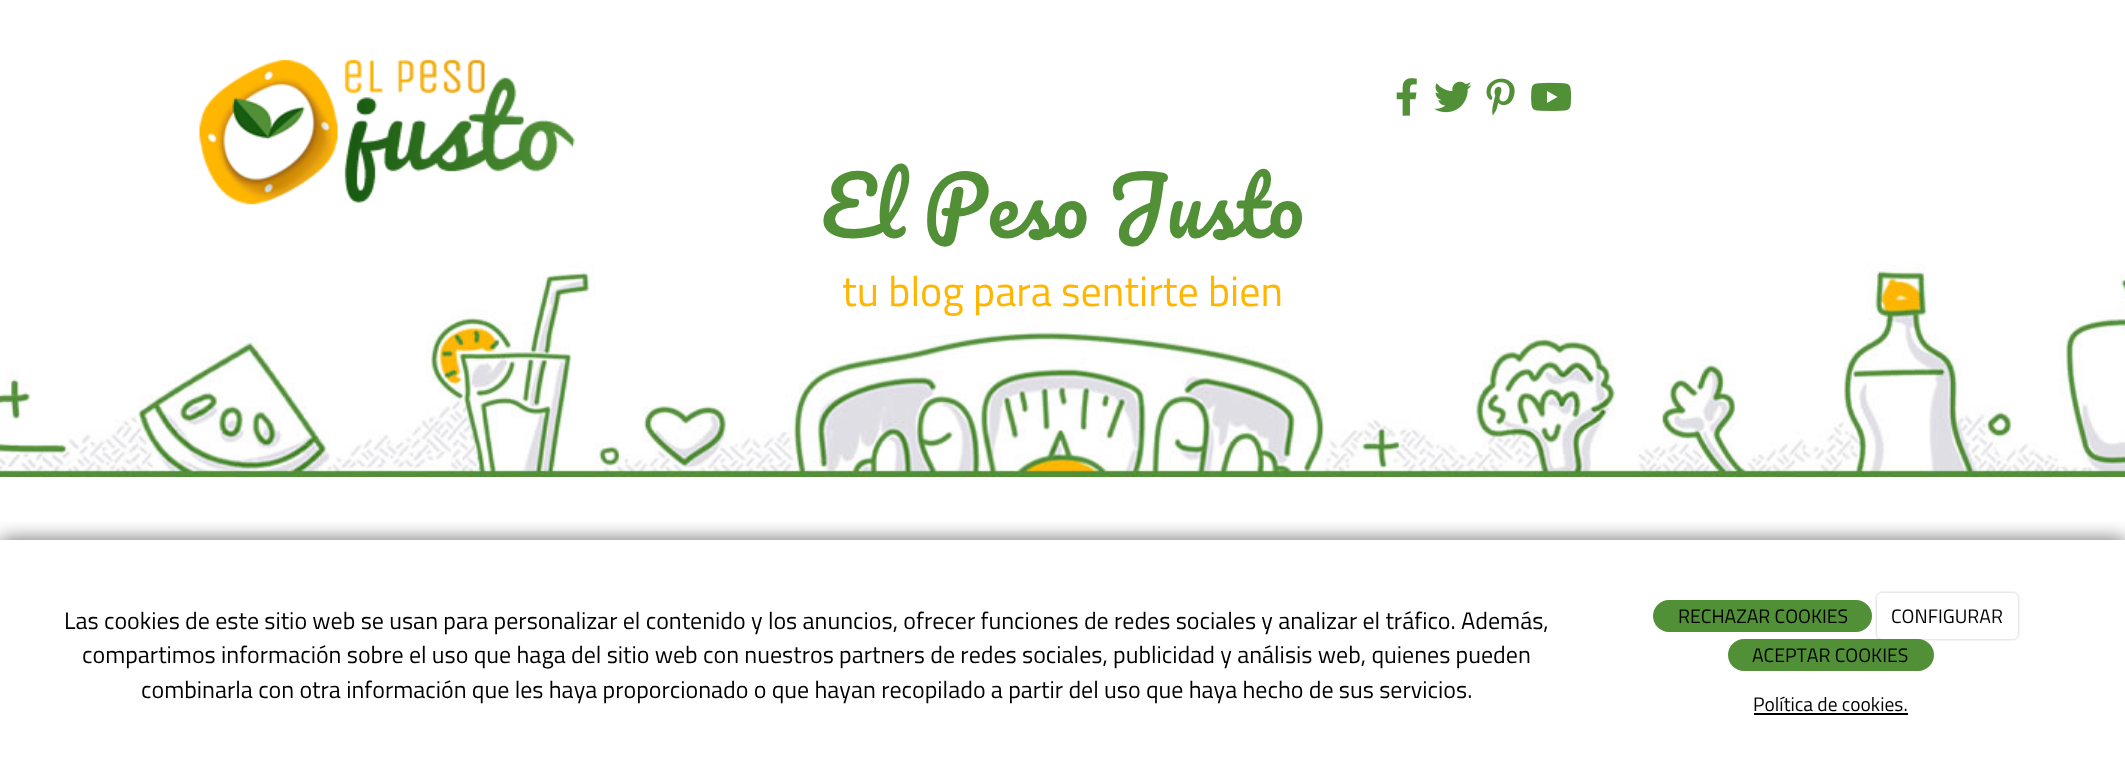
<!DOCTYPE html>
<meta charset="utf-8">
<style>body { margin: 0 } canvas { display: block }</style>
<canvas id="canvas" width="2125" height="769"></canvas>
<script type="module">
  const canvas = document.getElementById("canvas");
  const ctx = canvas.getContext("2d");
  ctx.miterLimit = 4;
  ctx.fontKerning = "none";
  async function loadImage(src) {
    const img = new Image();
    img.src = src;
    await img.decode();
    return img;
  }

  ctx.fillStyle = "#ffffff";
  ctx.fillRect(0, 0, 2125, 769);
  ctx.drawImage(await loadImage("img1.png"), 0, 263, 2125, 214);
  ctx.drawImage(await loadImage("img2.png"), 199, 59, 376, 146);
  ctx.drawImage(await loadImage("img3.png"), 1396, 78, 21, 38);
  ctx.drawImage(await loadImage("img4.png"), 1434, 81, 38, 32);
  ctx.drawImage(await loadImage("img5.png"), 1486, 78, 29, 38);
  ctx.drawImage(await loadImage("img6.png"), 1531, 82, 41, 29);
  ctx.wordSpacing = "-2px";
  ctx.font = "79.25px Pacifico";
  ctx.fillStyle = "#519037";
  ctx.fillText("El Peso Justo", 821, 238);
  ctx.wordSpacing = "0px";
  ctx.font = "42px Titillium Web";
  ctx.fillStyle = "#ffb600";
  ctx.fillText("tu blog para sentirte bien", 842, 306);
  ctx.save();
  ctx.beginPath();
  ctx.rect(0, 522, 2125, 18);
  ctx.clip();
  ctx.fillStyle = "rgba(0, 0, 0, 0.6)";
  ctx.filter = "blur(10px)";
  ctx.beginPath();
  ctx.rect(0, 540, 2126, 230);
  ctx.fill();
  ctx.filter = "none";
  ctx.restore();
  ctx.font = "24px Titillium Web";
  ctx.fillStyle = "#000000";
  ctx.fillText("Las cookies de este sitio web se usan para personalizar el contenido y los anuncios, ofrecer funciones de redes sociales y analizar el tráfico. Además,", 64, 629);
  ctx.fillText("compartimos información sobre el uso que haga del sitio web con nuestros partners de redes sociales, publicidad y análisis web, quienes pueden", 82, 663);
  ctx.fillText("combinarla con otra información que les haya proporcionado o que hayan recopilado a partir del uso que haya hecho de sus servicios.", 141, 698);
  ctx.fillStyle = "#519037";
  ctx.beginPath();
  ctx.roundRect(1653, 600, 219, 32, 16);
  ctx.fill();
  ctx.font = "19.5px Titillium Web";
  ctx.fillStyle = "#000000";
  ctx.fillText("RECHAZAR COOKIES", 1678, 623);
  ctx.fillStyle = "rgba(0, 0, 0, 0.25)";
  ctx.filter = "blur(1.5px)";
  ctx.beginPath();
  ctx.roundRect(1877, 593, 141, 46, 5);
  ctx.fill();
  ctx.filter = "none";
  ctx.fillStyle = "#ffffff";
  ctx.beginPath();
  ctx.roundRect(1877, 593, 141, 46, 5);
  ctx.fill();
  ctx.fillStyle = "#000000";
  ctx.fillText("CONFIGURAR", 1891, 623);
  ctx.fillStyle = "#519037";
  ctx.beginPath();
  ctx.roundRect(1728, 639, 206, 32, 16);
  ctx.fill();
  ctx.fillStyle = "#000000";
  ctx.fillText("ACEPTAR COOKIES", 1752, 662);
  ctx.fillText("Política de cookies.", 1753, 711);
  ctx.fillRect(1754, 713, 154, 2);
</script>
